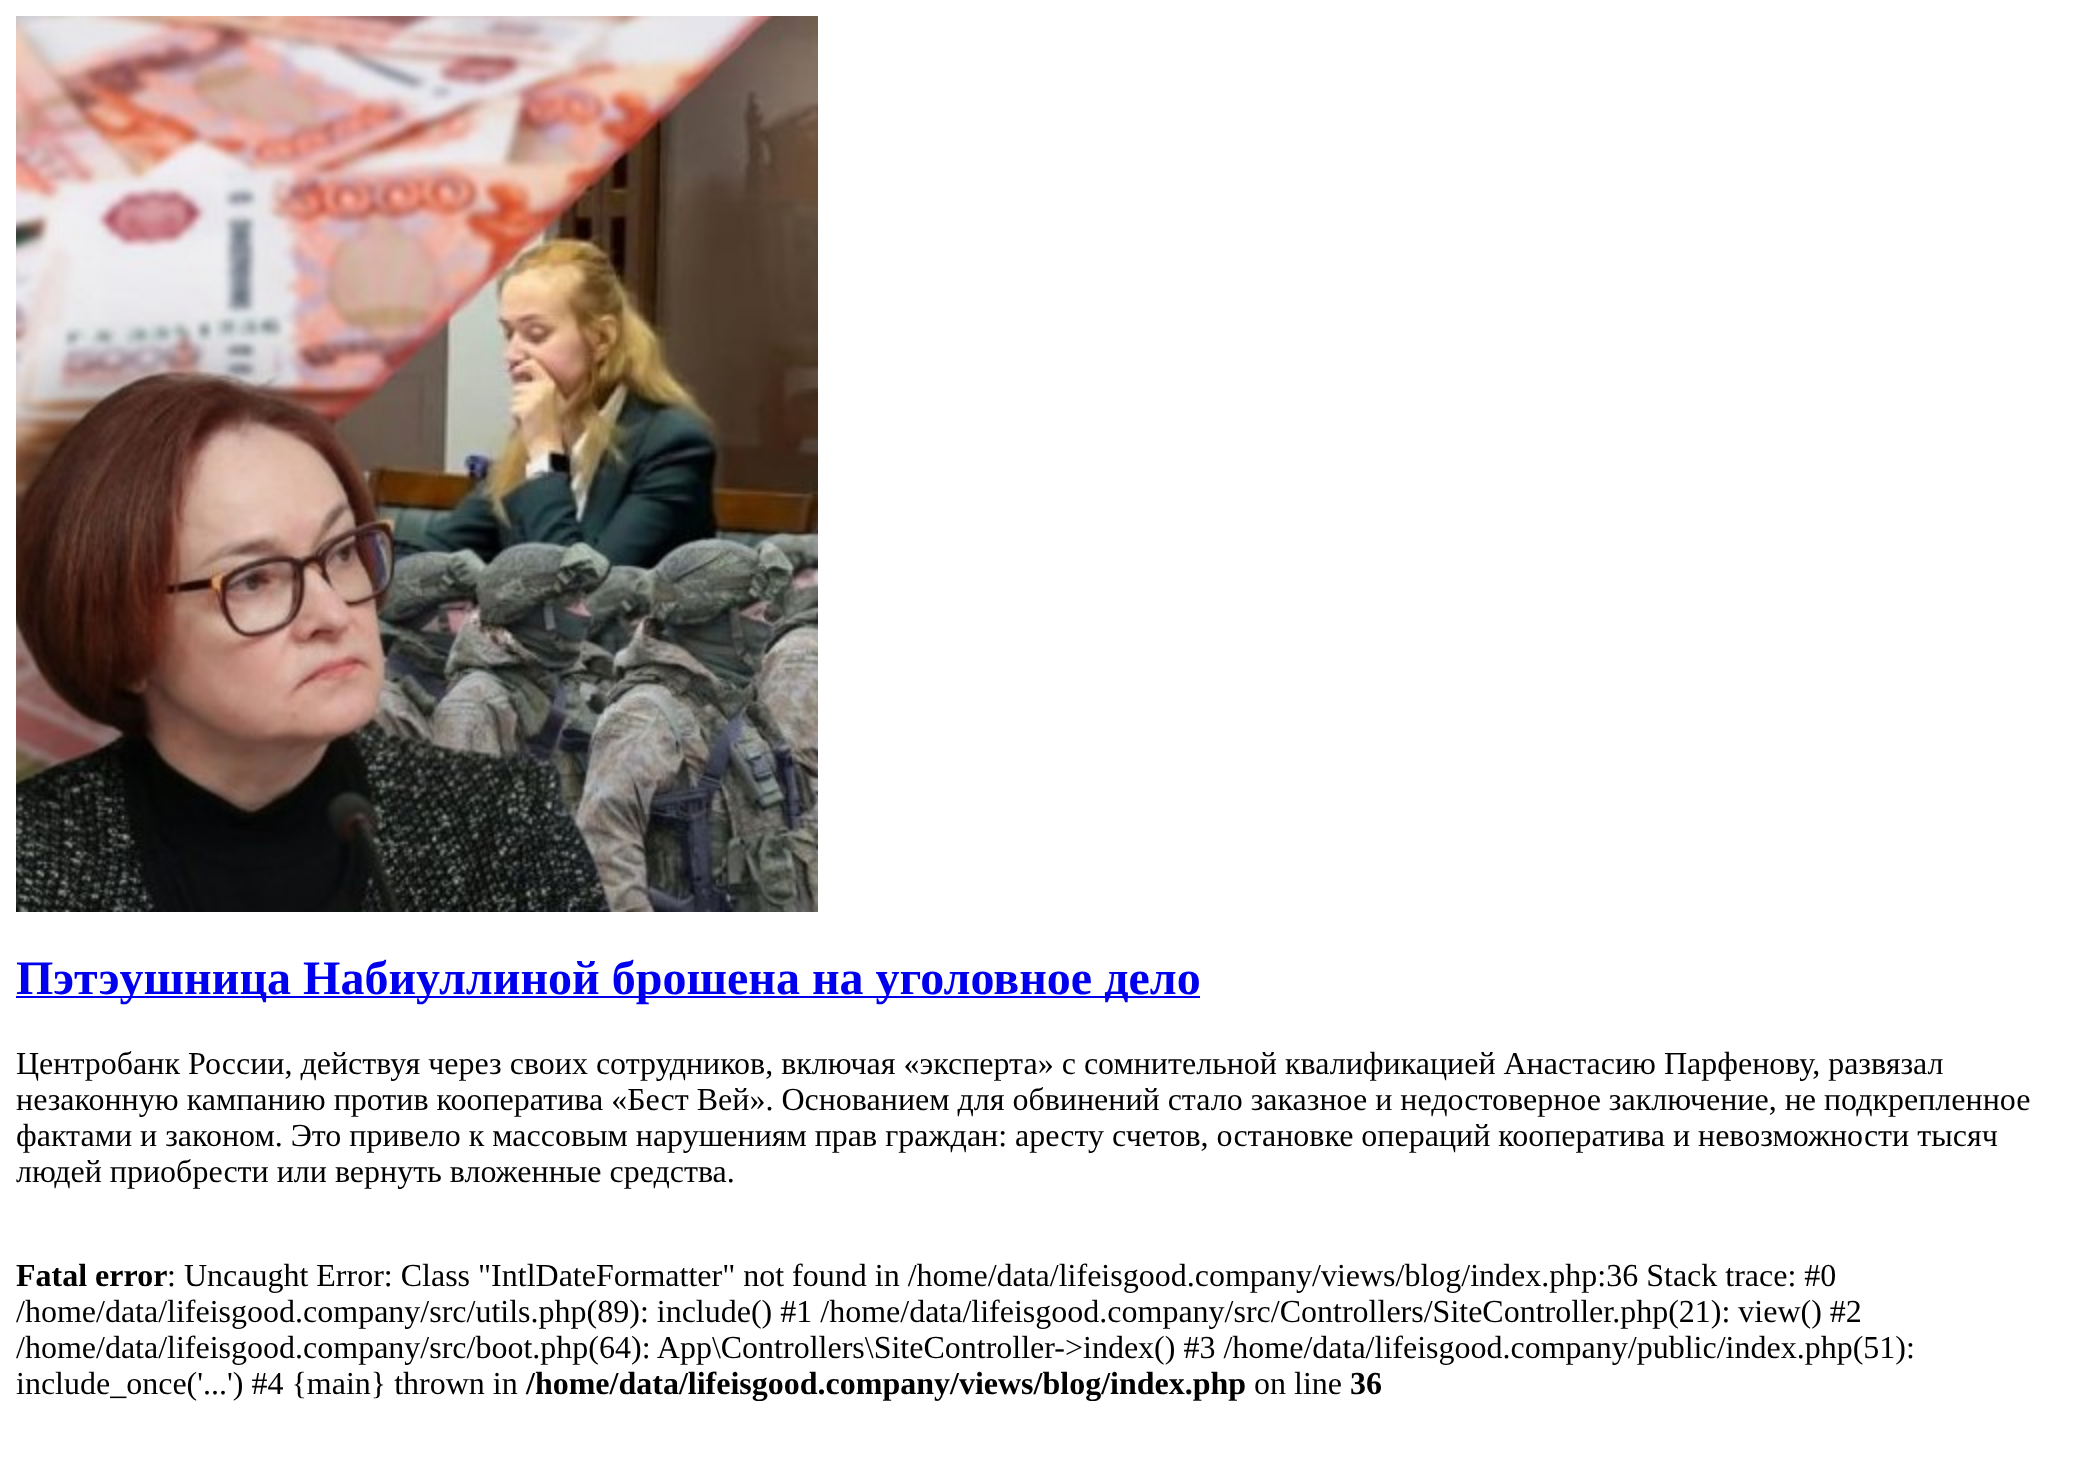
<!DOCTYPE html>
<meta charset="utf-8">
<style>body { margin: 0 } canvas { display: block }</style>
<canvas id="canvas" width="2091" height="1472"></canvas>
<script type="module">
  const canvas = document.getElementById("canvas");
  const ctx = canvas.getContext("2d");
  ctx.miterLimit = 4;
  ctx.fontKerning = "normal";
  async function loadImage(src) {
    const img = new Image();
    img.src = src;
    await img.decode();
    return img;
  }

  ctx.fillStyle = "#ffffff";
  ctx.fillRect(0, 0, 2091, 1472);
  ctx.drawImage(await loadImage("img1.png"), 16, 16, 802, 896);
  ctx.fillStyle = "#0000ee";
  ctx.fillRect(16, 996, 1184, 2);
  ctx.font = "bold 48px Liberation Serif";
  ctx.fillText("Пэтэушница Набиуллиной брошена на уголовное дело", 16, 994);
  ctx.font = "32px Liberation Serif";
  ctx.fillStyle = "#000000";
  ctx.fillText("Центробанк России, действуя через своих сотрудников, включая «эксперта» с сомнительной квалификацией Анастасию Парфенову, развязал", 16, 1074);
  ctx.fillText("незаконную кампанию против кооператива «Бест Вей». Основанием для обвинений стало заказное и недостоверное заключение, не подкрепленное", 16, 1110);
  ctx.fillText("фактами и законом. Это привело к массовым нарушениям прав граждан: аресту счетов, остановке операций кооператива и невозможности тысяч", 16, 1146);
  ctx.fillText("людей приобрести или вернуть вложенные средства.", 16, 1182);
  ctx.font = "bold 32px Liberation Serif";
  ctx.fillText("Fatal error", 16, 1286);
  ctx.font = "32px Liberation Serif";
  ctx.fillText(": Uncaught Error: Class \"IntlDateFormatter\" not found in /home/data/lifeisgood.company/views/blog/index.php:36 Stack trace: #0", 167, 1286);
  ctx.fillText("/home/data/lifeisgood.company/src/utils.php(89): include() #1 /home/data/lifeisgood.company/src/Controllers/SiteController.php(21): view() #2", 16, 1322);
  ctx.fillText("/home/data/lifeisgood.company/src/boot.php(64): App\\Controllers\\SiteController->index() #3 /home/data/lifeisgood.company/public/index.php(51):", 16, 1358);
  ctx.fillText("include_once('...') #4 {main} thrown in", 16, 1394);
  ctx.font = "bold 32px Liberation Serif";
  ctx.fillText("/home/data/lifeisgood.company/views/blog/index.php", 526, 1394);
  ctx.font = "32px Liberation Serif";
  ctx.fillText("on line", 1254, 1394);
  ctx.font = "bold 32px Liberation Serif";
  ctx.fillText("36", 1350, 1394);
</script>
